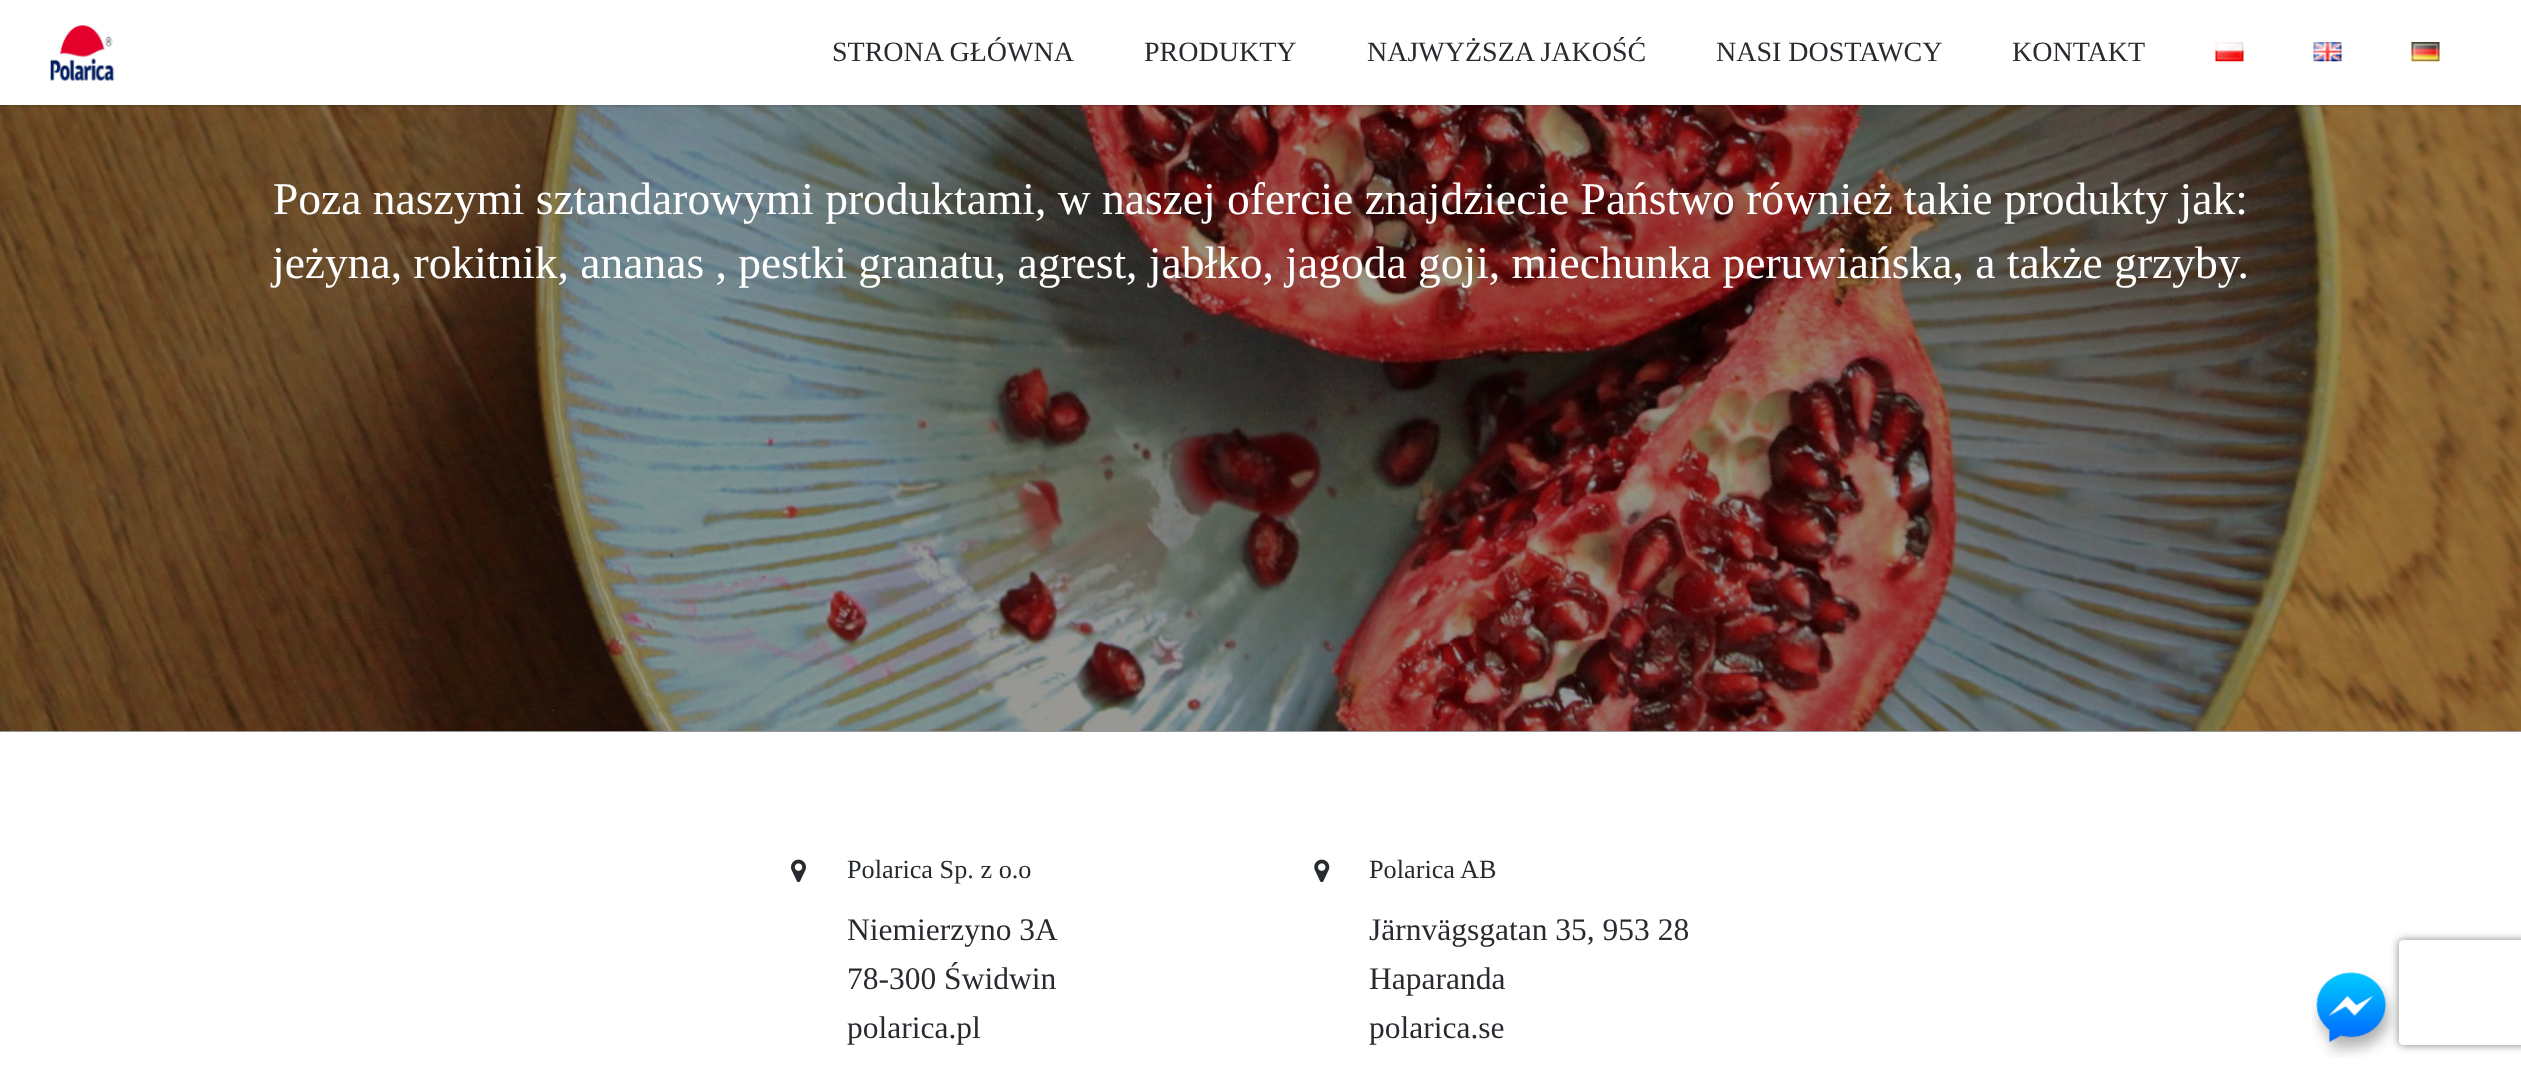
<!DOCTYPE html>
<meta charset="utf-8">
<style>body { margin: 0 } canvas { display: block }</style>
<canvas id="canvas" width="2521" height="1068"></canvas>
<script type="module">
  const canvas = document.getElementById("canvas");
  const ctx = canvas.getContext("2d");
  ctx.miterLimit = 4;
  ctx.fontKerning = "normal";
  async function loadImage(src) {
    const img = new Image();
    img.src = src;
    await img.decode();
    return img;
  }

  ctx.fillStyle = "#999999";
  ctx.fillRect(0, 0, 2521, 1068);
  ctx.drawImage(await loadImage("img5.png"), 0, 105, 2521, 627);
  ctx.fillStyle = "rgba(0, 0, 0, 0.08)";
  ctx.beginPath();
  ctx.moveTo(0, 105);
  ctx.lineTo(0, 107);
  ctx.lineTo(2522, 107);
  ctx.lineTo(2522, 2);
  ctx.lineTo(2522, 105);
  ctx.closePath();
  ctx.fill();
  ctx.fillStyle = "#ffffff";
  ctx.fillRect(0, 0, 2521, 105);
  ctx.drawImage(await loadImage("img1.png"), 50, 24, 65, 57);
  ctx.font = "28px Liberation Serif";
  ctx.fillStyle = "#272b2f";
  ctx.fillText("STRONA GŁÓWNA", 832, 61);
  ctx.fillText("PRODUKTY", 1144, 61);
  ctx.fillText("NAJWYŻSZA JAKOŚĆ", 1367, 61);
  ctx.fillText("NASI DOSTAWCY", 1716, 61);
  ctx.fillText("KONTAKT", 2012, 61);
  ctx.drawImage(await loadImage("img2.png"), 2215, 42, 29, 20);
  ctx.drawImage(await loadImage("img3.png"), 2313, 42, 29, 20);
  ctx.drawImage(await loadImage("img4.png"), 2411, 42, 29, 20);
  ctx.font = "45.5px Liberation Serif";
  ctx.fillStyle = "#ffffff";
  ctx.fillText("Poza naszymi sztandarowymi produktami, w naszej ofercie znajdziecie Państwo również takie produkty jak:", 273, 214);
  ctx.fillText("jeżyna, rokitnik, ananas , pestki granatu, agrest, jabłko, jagoda goji, miechunka peruwiańska, a także grzyby.", 272, 278);
  ctx.fillRect(0, 732, 2521, 336);
  ctx.drawImage(await loadImage("img6.png"), 791, 859, 15, 24);
  ctx.font = "26.25px Liberation Serif";
  ctx.fillStyle = "#272b2f";
  ctx.fillText("Polarica Sp. z o.o", 847, 878);
  ctx.font = "31.5px Liberation Serif";
  ctx.fillText("Niemierzyno 3A", 847, 940);
  ctx.fillText("78-300 Świdwin", 847, 989);
  ctx.fillText("polarica.pl", 847, 1038);
  ctx.drawImage(await loadImage("img7.png"), 1314, 859, 16, 24);
  ctx.font = "26.25px Liberation Serif";
  ctx.fillText("Polarica AB", 1369, 878);
  ctx.font = "31.5px Liberation Serif";
  ctx.fillText("Järnvägsgatan 35, 953 28", 1369, 940);
  ctx.fillText("Haparanda", 1369, 989);
  ctx.fillText("polarica.se", 1369, 1038);
  ctx.save();
  ctx.beginPath();
  ctx.moveTo(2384, 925);
  ctx.lineTo(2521, 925);
  ctx.lineTo(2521, 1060);
  ctx.lineTo(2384, 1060);
  ctx.closePath();
  ctx.moveTo(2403, 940);
  ctx.lineTo(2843, 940);
  ctx.bezierCurveTo(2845, 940, 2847, 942, 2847, 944);
  ctx.lineTo(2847, 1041);
  ctx.bezierCurveTo(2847, 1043, 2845, 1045, 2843, 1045);
  ctx.lineTo(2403, 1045);
  ctx.bezierCurveTo(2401, 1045, 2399, 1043, 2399, 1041);
  ctx.lineTo(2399, 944);
  ctx.bezierCurveTo(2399, 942, 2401, 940, 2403, 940);
  ctx.closePath();
  ctx.clip("evenodd");
  ctx.fillStyle = "#808080";
  ctx.filter = "blur(4.5px)";
  ctx.beginPath();
  ctx.roundRect(2399, 940, 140, 105, 4);
  ctx.fill();
  ctx.filter = "none";
  ctx.restore();
  ctx.drawImage(await loadImage("img8.png"), 2312, 972, 86, 86);
</script>
